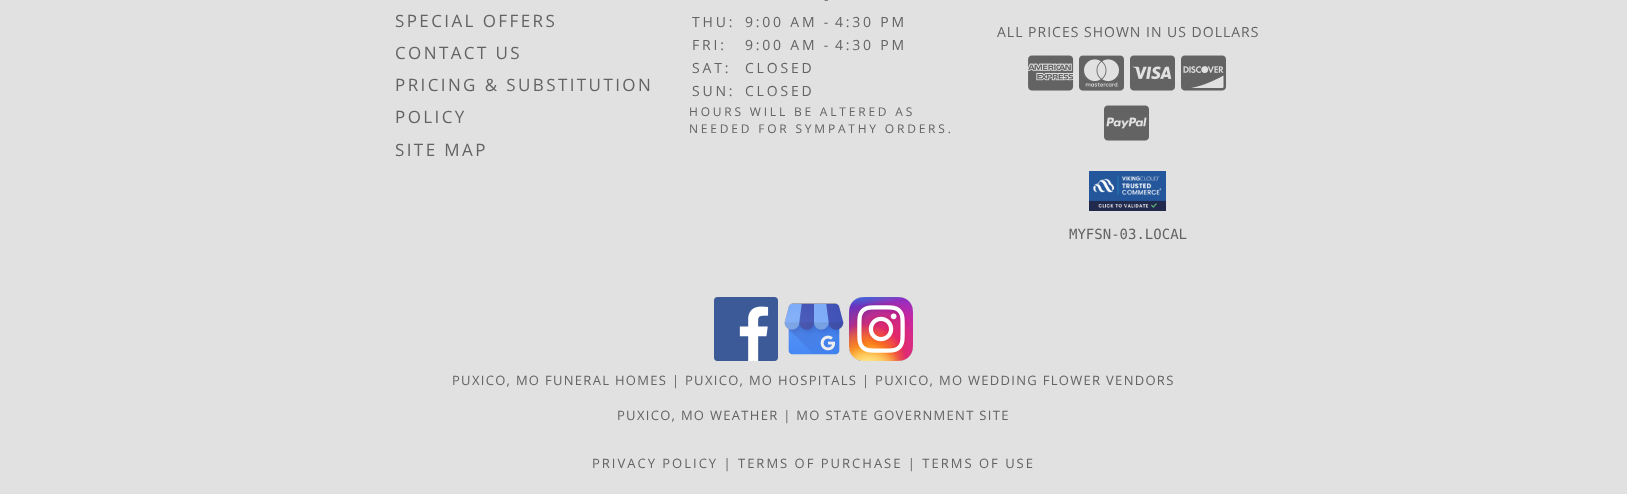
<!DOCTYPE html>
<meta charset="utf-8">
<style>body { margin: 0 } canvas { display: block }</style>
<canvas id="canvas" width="1627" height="494"></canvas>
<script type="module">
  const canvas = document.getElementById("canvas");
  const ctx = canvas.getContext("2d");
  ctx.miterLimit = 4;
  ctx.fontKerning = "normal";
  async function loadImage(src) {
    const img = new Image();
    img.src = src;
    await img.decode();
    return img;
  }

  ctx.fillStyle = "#e1e1e1";
  ctx.fillRect(0, 0, 1627, 494);
  ctx.letterSpacing = "2.4px";
  ctx.font = "17px Open Sans";
  ctx.fillStyle = "#636363";
  ctx.fillText("SPECIAL OFFERS", 395, 27);
  ctx.fillText("CONTACT US", 395, 59);
  ctx.fillText("PRICING & SUBSTITUTION", 395, 91);
  ctx.fillText("POLICY", 395, 123);
  ctx.fillText("SITE MAP", 395, 156);
  ctx.letterSpacing = "2.8px";
  ctx.font = "14px Open Sans";
  ctx.fillText("-", 824, 4);
  ctx.fillText("THU:", 692, 27);
  ctx.fillText("9:00 AM -", 745, 27);
  ctx.fillText("4:30 PM", 835, 27);
  ctx.fillText("FRI:", 692, 50);
  ctx.fillText("9:00 AM -", 745, 50);
  ctx.fillText("4:30 PM", 835, 50);
  ctx.fillText("SAT:", 692, 73);
  ctx.fillText("CLOSED", 745, 73);
  ctx.fillText("SUN:", 692, 96);
  ctx.fillText("CLOSED", 745, 96);
  ctx.font = "12px Open Sans";
  ctx.fillText("HOURS WILL BE ALTERED AS", 689, 116);
  ctx.fillText("NEEDED FOR SYMPATHY ORDERS.", 689, 133);
  ctx.letterSpacing = "1px";
  ctx.font = "14px Open Sans";
  ctx.fillText("ALL PRICES SHOWN IN US DOLLARS", 997, 37);
  ctx.drawImage(await loadImage("img1.png"), 1028, 55, 46, 36);
  ctx.drawImage(await loadImage("img2.png"), 1079, 55, 45, 36);
  ctx.drawImage(await loadImage("img3.png"), 1130, 55, 45, 36);
  ctx.drawImage(await loadImage("img4.png"), 1181, 55, 45, 36);
  ctx.drawImage(await loadImage("img5.png"), 1104, 105, 45, 36);
  ctx.drawImage(await loadImage("img6.png"), 1089, 171, 77, 40);
  ctx.letterSpacing = "0px";
  ctx.font = "14px DejaVu Sans Mono";
  ctx.fillText("MYFSN-03.LOCAL", 1069, 239);
  ctx.drawImage(await loadImage("img7.png"), 714, 297, 64, 64);
  ctx.drawImage(await loadImage("img8.png"), 784, 303, 60, 52);
  ctx.drawImage(await loadImage("img9.png"), 849, 297, 64, 64);
  ctx.letterSpacing = "1.3px";
  ctx.font = "13px Open Sans";
  ctx.fillText("PUXICO, MO FUNERAL HOMES | PUXICO, MO HOSPITALS | PUXICO, MO WEDDING FLOWER VENDORS", 452, 385);
  ctx.fillText("PUXICO, MO WEATHER | MO STATE GOVERNMENT SITE", 617, 420);
  ctx.letterSpacing = "2px";
  ctx.fillText("PRIVACY POLICY | TERMS OF PURCHASE | TERMS OF USE", 592, 468);
</script>
